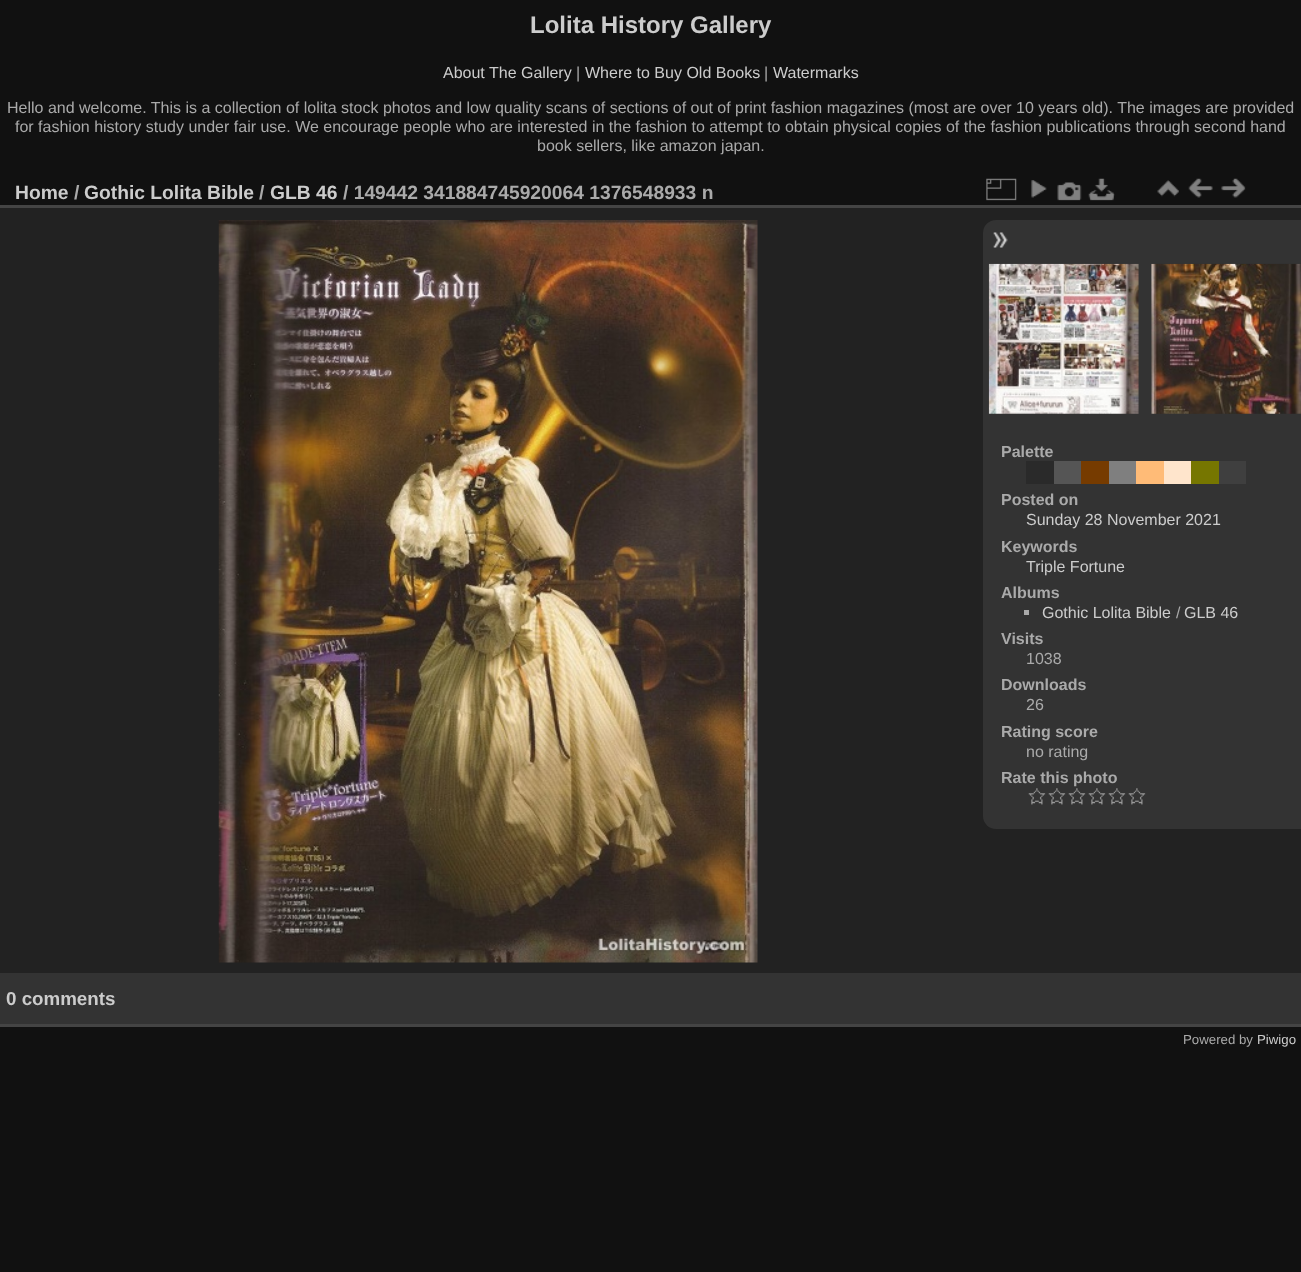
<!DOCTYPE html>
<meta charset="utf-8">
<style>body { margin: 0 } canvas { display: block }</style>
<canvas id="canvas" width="1301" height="1272"></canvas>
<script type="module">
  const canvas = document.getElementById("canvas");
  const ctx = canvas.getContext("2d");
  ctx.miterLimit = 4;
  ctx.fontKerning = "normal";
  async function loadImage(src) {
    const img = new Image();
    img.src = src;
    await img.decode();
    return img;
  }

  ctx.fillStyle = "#111111";
  ctx.fillRect(0, 0, 1301, 1272);
  ctx.font = "bold 24px Liberation Sans";
  ctx.fillStyle = "#cccccc";
  ctx.fillText("Lolita History Gallery", 530, 33);
  ctx.font = "16px Liberation Sans";
  ctx.fillText("About The Gallery", 443, 78);
  ctx.fillStyle = "#aaaaaa";
  ctx.fillText("|", 576, 78);
  ctx.fillStyle = "#cccccc";
  ctx.fillText("Where to Buy Old Books", 585, 78);
  ctx.fillStyle = "#aaaaaa";
  ctx.fillText("|", 764, 78);
  ctx.fillStyle = "#cccccc";
  ctx.fillText("Watermarks", 773, 78);
  ctx.fillStyle = "#aaaaaa";
  ctx.fillText("Hello and welcome. This is a collection of lolita stock photos and low quality scans of sections of out of print fashion magazines (most are over 10 years old). The images are provided", 7, 113);
  ctx.fillText("for fashion history study under fair use. We encourage people who are interested in the fashion to attempt to obtain physical copies of the fashion publications through second hand", 15, 132);
  ctx.fillText("book sellers, like amazon japan.", 537, 151);
  ctx.fillStyle = "#222222";
  ctx.fillRect(0, 208, 1301, 765);
  ctx.fillStyle = "#444444";
  ctx.fillRect(0, 1024, 1301, 3);
  ctx.fillRect(0, 205, 1301, 3);
  ctx.font = "bold 19.25px Liberation Sans";
  ctx.fillStyle = "#cccccc";
  ctx.fillText("Home", 15, 199);
  ctx.fillStyle = "#aaaaaa";
  ctx.fillText("/", 74, 199);
  ctx.fillStyle = "#cccccc";
  ctx.fillText("Gothic Lolita Bible", 84, 199);
  ctx.fillStyle = "#aaaaaa";
  ctx.fillText("/", 259, 199);
  ctx.fillStyle = "#cccccc";
  ctx.fillText("GLB 46", 270, 199);
  ctx.fillStyle = "#aaaaaa";
  ctx.fillText("/ 149442 341884745920064 1376548933 n", 343, 199);
  ctx.drawImage(await loadImage("img1.png"), 986, 178, 31, 23);
  ctx.drawImage(await loadImage("img2.png"), 1031, 180, 16, 18);
  ctx.drawImage(await loadImage("img3.png"), 1057, 182, 25, 19);
  ctx.drawImage(await loadImage("img4.png"), 1088, 178, 27, 23);
  ctx.drawImage(await loadImage("img5.png"), 1157, 180, 22, 17);
  ctx.drawImage(await loadImage("img6.png"), 1188, 178, 25, 20);
  ctx.drawImage(await loadImage("img7.png"), 1221, 178, 25, 20);
  ctx.drawImage(await loadImage("img8.png"), 218, 220, 540, 743);
  ctx.fillStyle = "#333333";
  ctx.beginPath();
  ctx.roundRect(983, 220, 318, 609, [13, 0, 0, 13]);
  ctx.fill();
  ctx.drawImage(await loadImage("img9.png"), 993, 232, 15, 16);
  ctx.drawImage(await loadImage("img10.png"), 988, 263, 151, 151);
  ctx.drawImage(await loadImage("img11.png"), 1151, 263, 150, 151);
  ctx.font = "bold 16px Liberation Sans";
  ctx.fillStyle = "#aaaaaa";
  ctx.fillText("Palette", 1001, 457);
  ctx.fillStyle = "#2a2a2a";
  ctx.fillRect(1026, 461, 28, 23);
  ctx.fillStyle = "#555555";
  ctx.fillRect(1054, 461, 27, 23);
  ctx.fillStyle = "#763b00";
  ctx.fillRect(1081, 461, 28, 23);
  ctx.fillStyle = "#7f7f7f";
  ctx.fillRect(1109, 461, 27, 23);
  ctx.fillStyle = "#ffbb77";
  ctx.fillRect(1136, 461, 28, 23);
  ctx.fillStyle = "#ffe5cc";
  ctx.fillRect(1164, 461, 27, 23);
  ctx.fillStyle = "#767600";
  ctx.fillRect(1191, 461, 28, 23);
  ctx.fillStyle = "#3f3f3f";
  ctx.fillRect(1219, 461, 27, 23);
  ctx.fillStyle = "#aaaaaa";
  ctx.fillText("Posted on", 1001, 505);
  ctx.font = "16px Liberation Sans";
  ctx.fillStyle = "#cccccc";
  ctx.fillText("Sunday 28 November 2021", 1026, 525);
  ctx.font = "bold 16px Liberation Sans";
  ctx.fillStyle = "#aaaaaa";
  ctx.fillText("Keywords", 1001, 552);
  ctx.font = "16px Liberation Sans";
  ctx.fillStyle = "#cccccc";
  ctx.fillText("Triple Fortune", 1026, 572);
  ctx.font = "bold 16px Liberation Sans";
  ctx.fillStyle = "#aaaaaa";
  ctx.fillText("Albums", 1001, 598);
  ctx.fillRect(1024, 610, 5, 5);
  ctx.font = "16px Liberation Sans";
  ctx.fillStyle = "#cccccc";
  ctx.fillText("Gothic Lolita Bible", 1042, 618);
  ctx.fillStyle = "#aaaaaa";
  ctx.fillText("/", 1176, 618);
  ctx.fillStyle = "#cccccc";
  ctx.fillText("GLB 46", 1184, 618);
  ctx.font = "bold 16px Liberation Sans";
  ctx.fillStyle = "#aaaaaa";
  ctx.fillText("Visits", 1001, 644);
  ctx.font = "16px Liberation Sans";
  ctx.fillText("1038", 1026, 664);
  ctx.font = "bold 16px Liberation Sans";
  ctx.fillText("Downloads", 1001, 690);
  ctx.font = "16px Liberation Sans";
  ctx.fillText("26", 1026, 710);
  ctx.font = "bold 16px Liberation Sans";
  ctx.fillText("Rating score", 1001, 737);
  ctx.font = "16px Liberation Sans";
  ctx.fillText("no rating", 1026, 757);
  ctx.font = "bold 16px Liberation Sans";
  ctx.fillText("Rate this photo", 1001, 783);
  ctx.drawImage(await loadImage("img12.png"), 1028, 788, 18, 17);
  ctx.drawImage(await loadImage("img12.png"), 1048, 788, 18, 17);
  ctx.drawImage(await loadImage("img12.png"), 1068, 788, 18, 17);
  ctx.drawImage(await loadImage("img12.png"), 1088, 788, 18, 17);
  ctx.drawImage(await loadImage("img12.png"), 1108, 788, 18, 17);
  ctx.drawImage(await loadImage("img12.png"), 1128, 788, 18, 17);
  ctx.fillStyle = "#333333";
  ctx.fillRect(0, 973, 1301, 51);
  ctx.font = "bold 18.75px Liberation Sans";
  ctx.fillStyle = "#cccccc";
  ctx.fillText("0 comments", 6, 1005);
  ctx.font = "13.25px Liberation Sans";
  ctx.fillStyle = "#aaaaaa";
  ctx.fillText("Powered by", 1183, 1044);
  ctx.fillStyle = "#cccccc";
  ctx.fillText("Piwigo", 1257, 1044);
</script>
